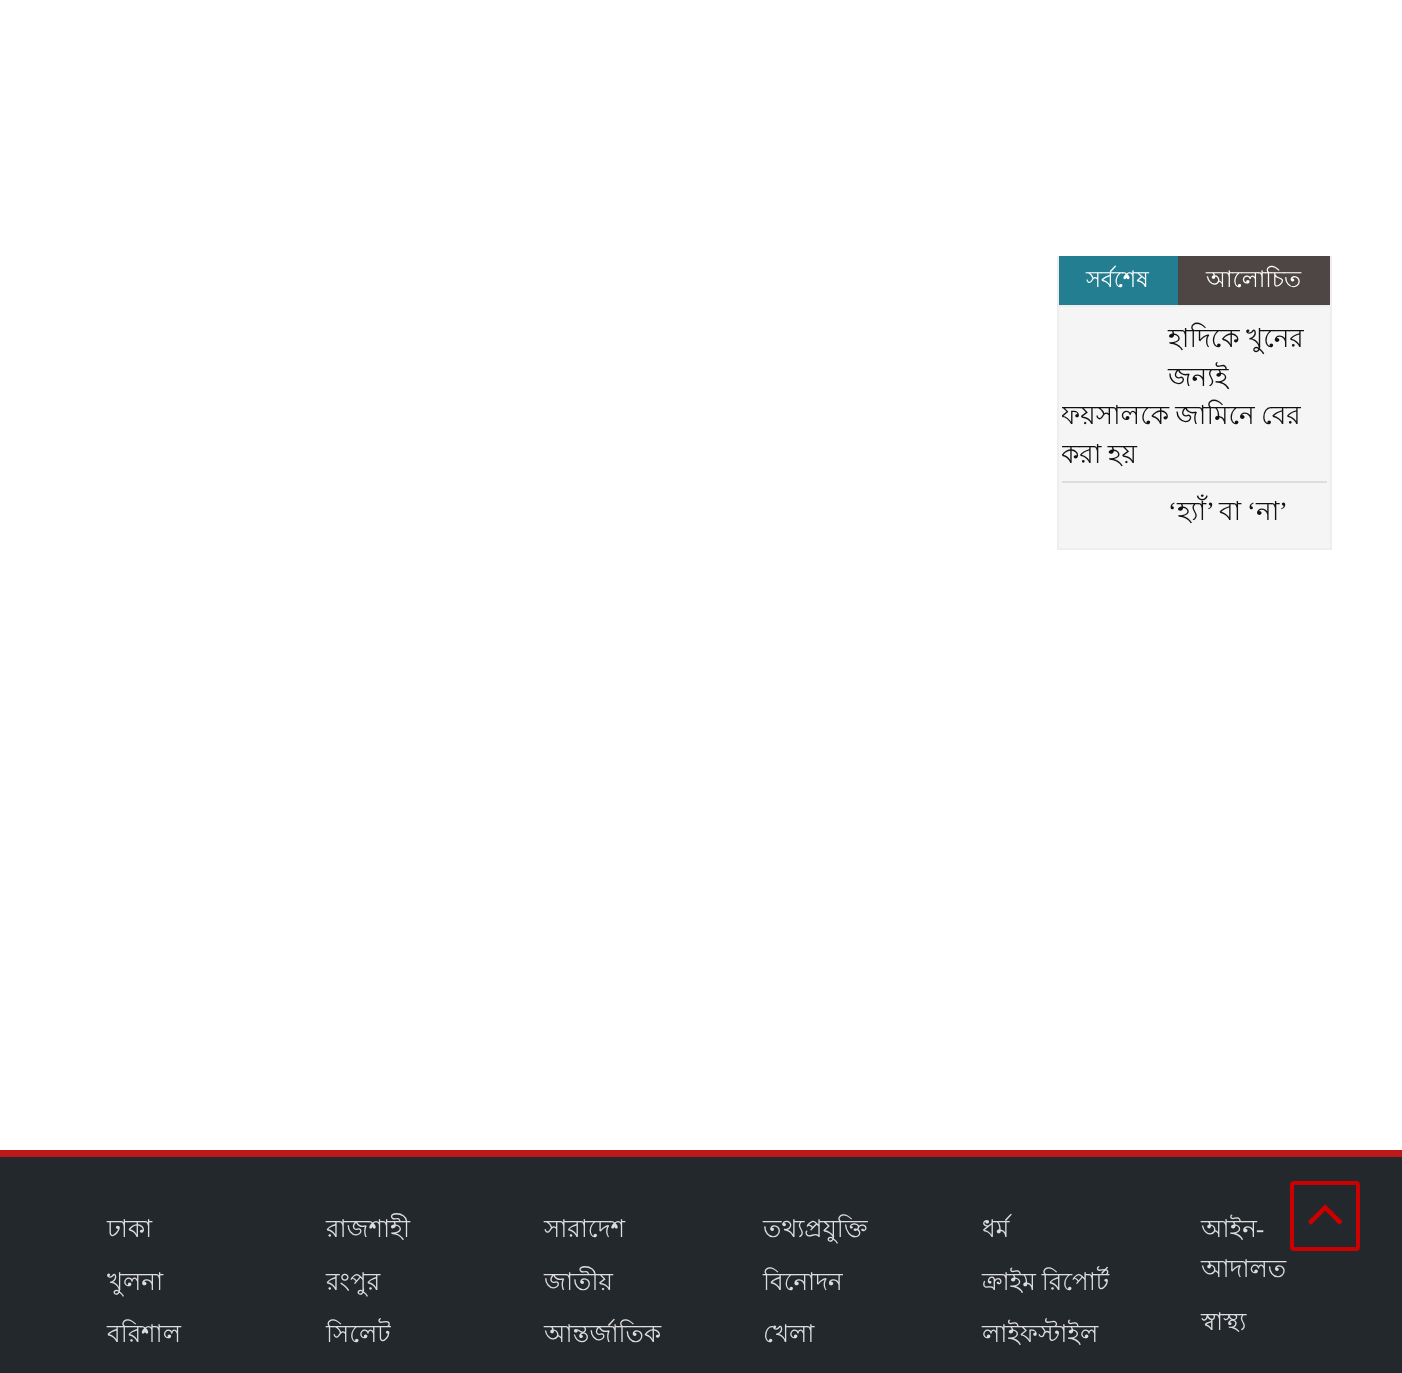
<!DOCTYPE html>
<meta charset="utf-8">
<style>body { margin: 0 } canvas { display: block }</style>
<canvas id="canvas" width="1402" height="1373"></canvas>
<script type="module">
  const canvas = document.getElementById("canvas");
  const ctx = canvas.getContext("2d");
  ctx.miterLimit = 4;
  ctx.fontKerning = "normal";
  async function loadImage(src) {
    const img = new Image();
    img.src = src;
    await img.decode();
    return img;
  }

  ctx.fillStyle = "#ffffff";
  ctx.fillRect(0, 0, 1402, 1373);
  ctx.fillStyle = "#4e4545";
  ctx.fillRect(1178, 256, 152, 49);
  ctx.fillStyle = "#eeeeee";
  ctx.fillRect(1330, 256, 2, 49);
  ctx.fillRect(1057, 256, 2, 49);
  ctx.fillStyle = "#247e91";
  ctx.fillRect(1059, 256, 119, 49);
  ctx.font = "22.75px Lohit Bengali";
  ctx.fillStyle = "#ffffff";
  ctx.fillText("সর্বশেষ", 1086, 287);
  ctx.fillText("আলোচিত", 1206, 287);
  ctx.fillStyle = "#f5f5f5";
  ctx.beginPath();
  ctx.rect(1058, 306, 273, 243);
  ctx.fill();
  ctx.strokeStyle = "#eeeeee";
  ctx.lineWidth = 2;
  ctx.stroke();
  ctx.fillStyle = "#dddddd";
  ctx.fillRect(1062, 481, 265, 2);
  ctx.wordSpacing = "-1px";
  ctx.font = "26.25px Lohit Bengali";
  ctx.fillStyle = "#111111";
  ctx.fillText("হাদিকে খুনের", 1168, 347);
  ctx.wordSpacing = "0px";
  ctx.fillText("জন্যই", 1168, 386);
  ctx.save();
  ctx.beginPath();
  ctx.rect(1062, 310, 265, 171);
  ctx.clip();
  ctx.wordSpacing = "-1px";
  ctx.fillText("ফয়সালকে জামিনে বের", 1061, 424);
  ctx.fillText("করা হয়", 1061, 463);
  ctx.restore();
  ctx.font = "26.25px Liberation Serif";
  ctx.fillText("‘", 1168, 520);
  ctx.font = "26.25px Lohit Bengali";
  ctx.fillText("হ্যাঁ", 1177, 520);
  ctx.fillText("বা", 1219, 520);
  ctx.fillText("না", 1256, 520);
  ctx.font = "26.25px Liberation Serif";
  ctx.fillText("’", 1206, 520);
  ctx.fillText("‘", 1247, 520);
  ctx.fillText("’", 1279, 520);
  ctx.fillStyle = "#23282d";
  ctx.fillRect(0, 1157, 1402, 216);
  ctx.fillStyle = "#bb1919";
  ctx.fillRect(0, 1150, 1402, 7);
  ctx.font = "24.5px Lohit Bengali";
  ctx.fillStyle = "#dddddd";
  ctx.fillText("ঢাকা", 107, 1237);
  ctx.fillText("খুলনা", 107, 1290);
  ctx.fillText("বরিশাল", 107, 1342);
  ctx.fillText("রাজশাহী", 326, 1237);
  ctx.fillText("রংপুর", 326, 1290);
  ctx.fillText("সিলেট", 326, 1342);
  ctx.fillText("সারাদেশ", 544, 1237);
  ctx.fillText("জাতীয়", 544, 1290);
  ctx.fillText("আন্তর্জাতিক", 544, 1342);
  ctx.fillText("তথ্যপ্রযুক্তি", 763, 1237);
  ctx.fillText("বিনোদন", 763, 1290);
  ctx.fillText("খেলা", 763, 1342);
  ctx.fillText("ধর্ম", 982, 1237);
  ctx.wordSpacing = "-1px";
  ctx.fillText("ক্রাইম রিপোর্ট", 982, 1290);
  ctx.wordSpacing = "0px";
  ctx.fillText("লাইফস্টাইল", 982, 1342);
  ctx.fillText("আইন", 1201, 1237);
  ctx.font = "24.5px Liberation Serif";
  ctx.fillText("-", 1256, 1237);
  ctx.font = "24.5px Lohit Bengali";
  ctx.fillText("আদালত", 1201, 1277);
  ctx.fillText("স্বাস্থ্য", 1201, 1330);
  ctx.beginPath();
  ctx.roundRect(1292, 1183, 66, 66, 2);
  ctx.strokeStyle = "#cc0000";
  ctx.lineWidth = 4;
  ctx.stroke();
  ctx.drawImage(await loadImage("img1.png"), 1308, 1204, 35, 21);
</script>
